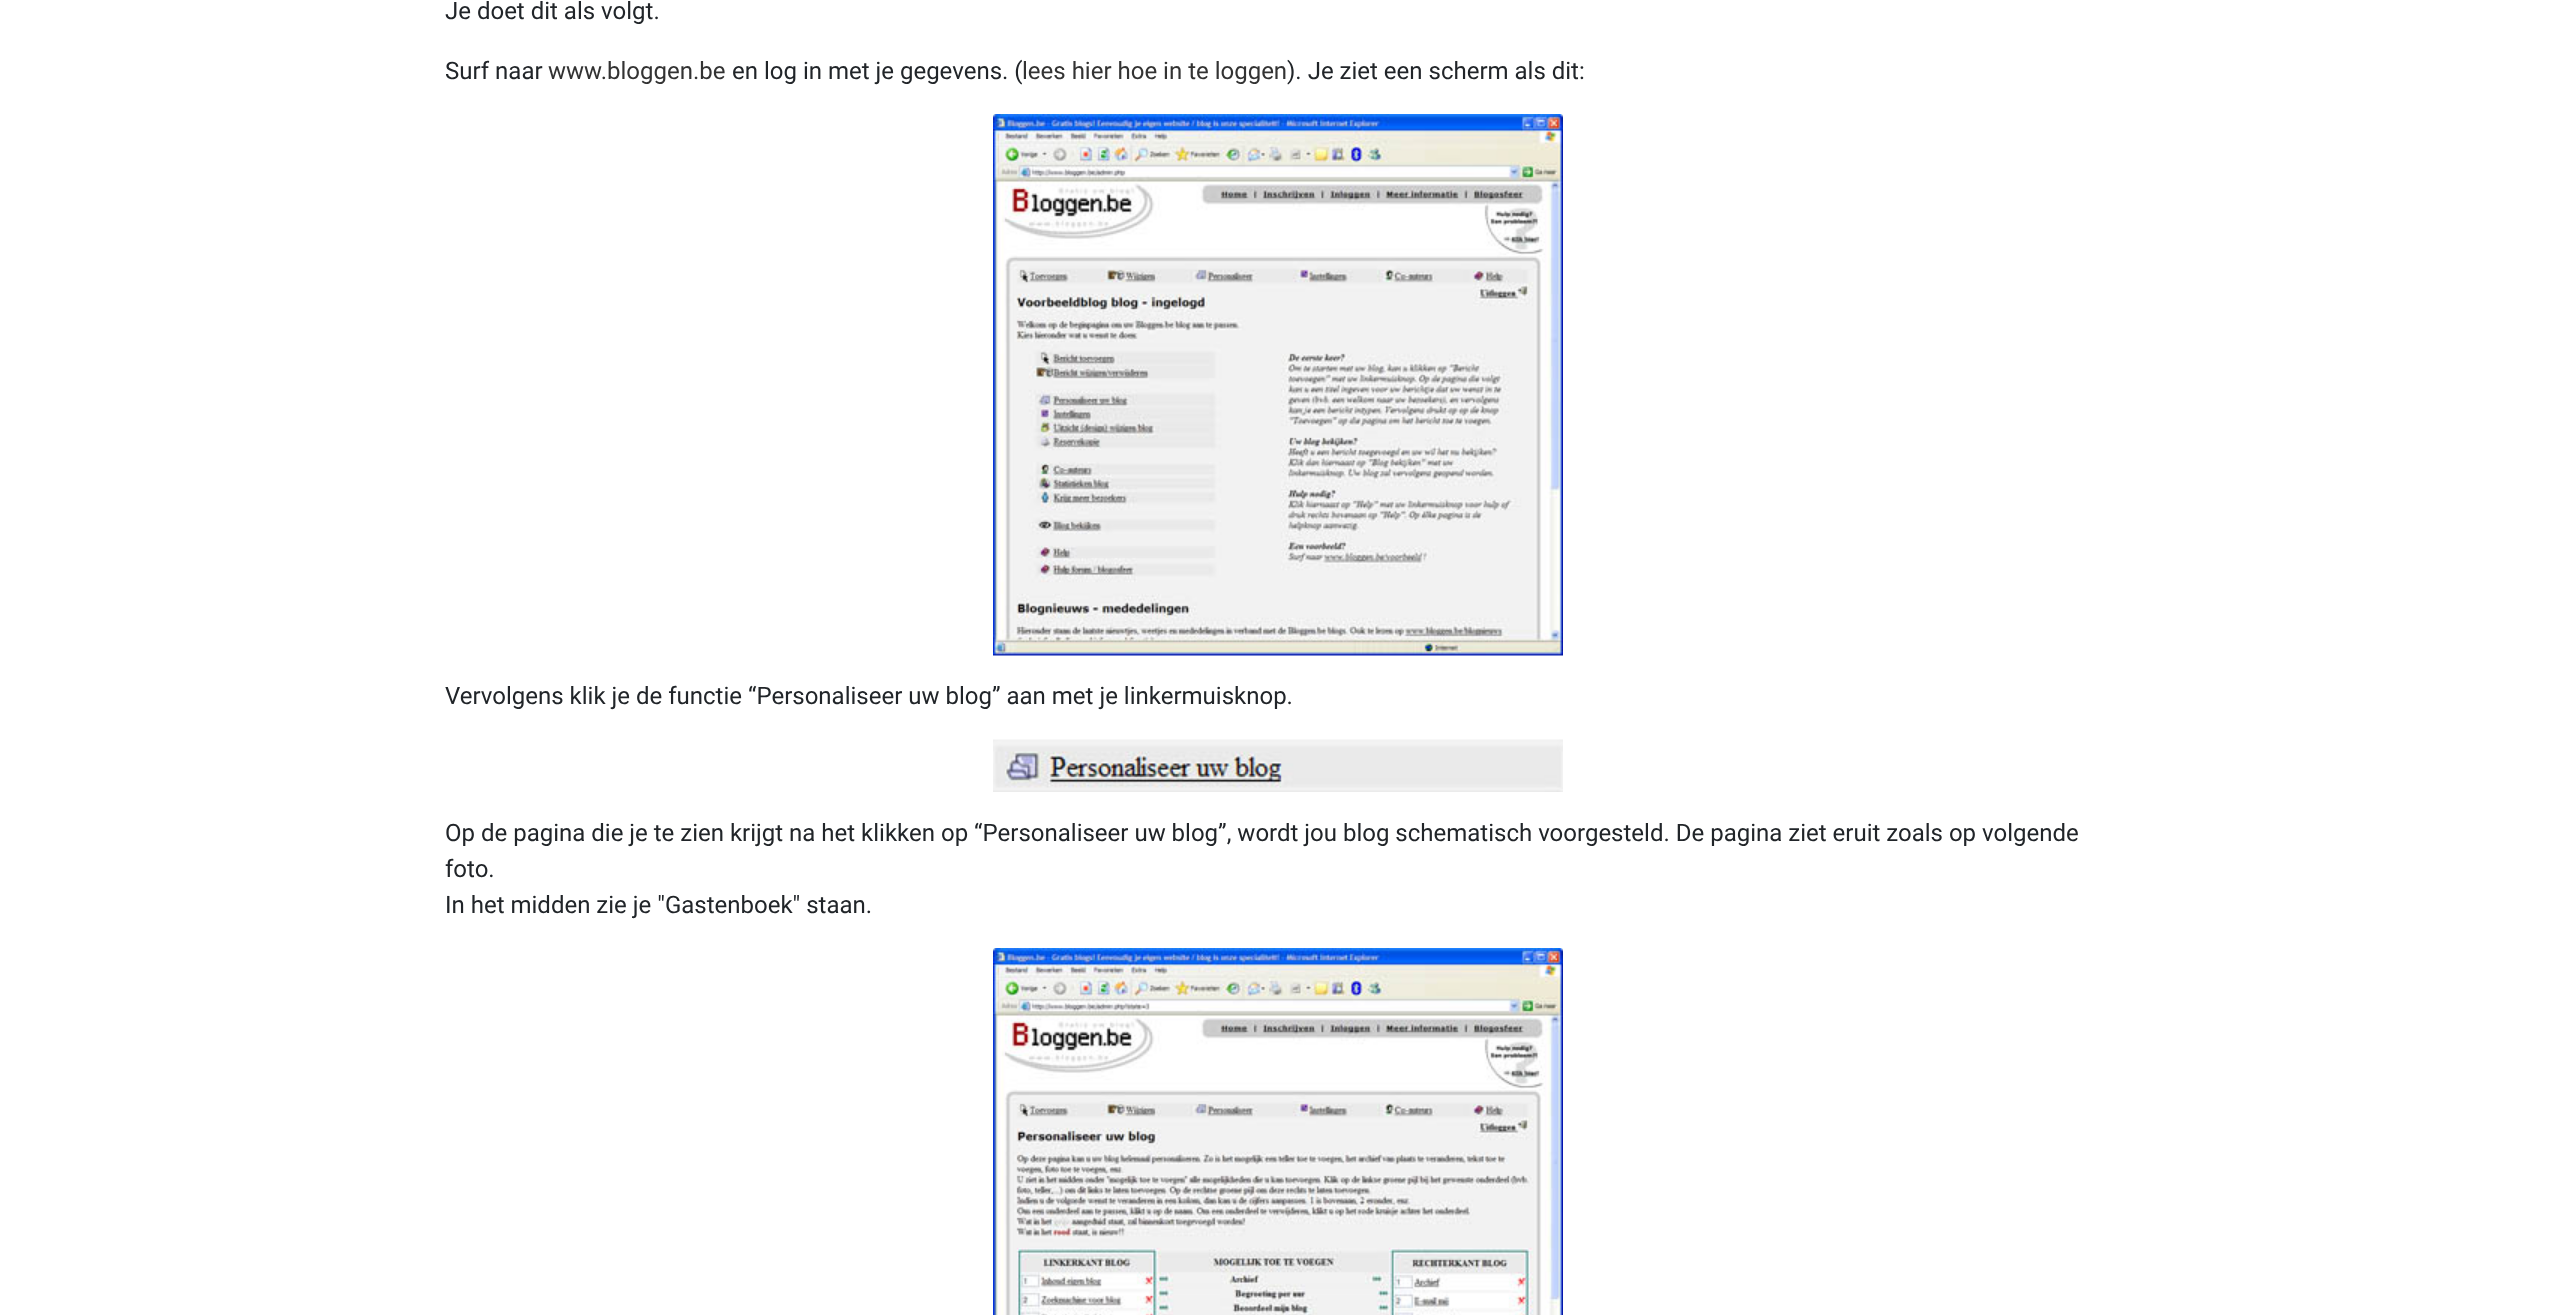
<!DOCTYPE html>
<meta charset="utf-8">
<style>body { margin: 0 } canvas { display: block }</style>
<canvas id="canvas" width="2554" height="1315"></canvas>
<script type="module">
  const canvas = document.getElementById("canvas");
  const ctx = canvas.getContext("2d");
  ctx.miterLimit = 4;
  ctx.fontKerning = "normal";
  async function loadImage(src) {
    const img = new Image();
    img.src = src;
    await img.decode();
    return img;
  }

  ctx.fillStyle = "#ffffff";
  ctx.fillRect(0, 0, 2554, 1315);
  ctx.font = "24px Roboto";
  ctx.fillStyle = "#212529";
  ctx.fillText("Je doet dit als volgt.", 445, 19);
  ctx.fillText("Surf naar", 445, 79);
  ctx.fillStyle = "#333333";
  ctx.fillText("www.bloggen.be", 548, 79);
  ctx.fillStyle = "#212529";
  ctx.fillText("en log in met je gegevens. (", 732, 79);
  ctx.fillStyle = "#333333";
  ctx.fillText("lees hier hoe in te loggen", 1022, 79);
  ctx.fillStyle = "#212529";
  ctx.fillText("). Je ziet een scherm als dit:", 1287, 79);
  ctx.drawImage(await loadImage("img1.png"), 993, 114, 570, 542);
  ctx.fillText("Vervolgens klik je de functie “Personaliseer uw blog” aan met je linkermuisknop.", 445, 704);
  ctx.drawImage(await loadImage("img2.png"), 993, 739, 570, 53);
  ctx.fillText("Op de pagina die je te zien krijgt na het klikken op “Personaliseer uw blog”, wordt jou blog schematisch voorgesteld. De pagina ziet eruit zoals op volgende", 445, 841);
  ctx.fillText("foto.", 445, 877);
  ctx.fillText("In het midden zie je \"Gastenboek\" staan.", 445, 913);
  ctx.drawImage(await loadImage("img3.png"), 993, 948, 570, 367);
</script>
